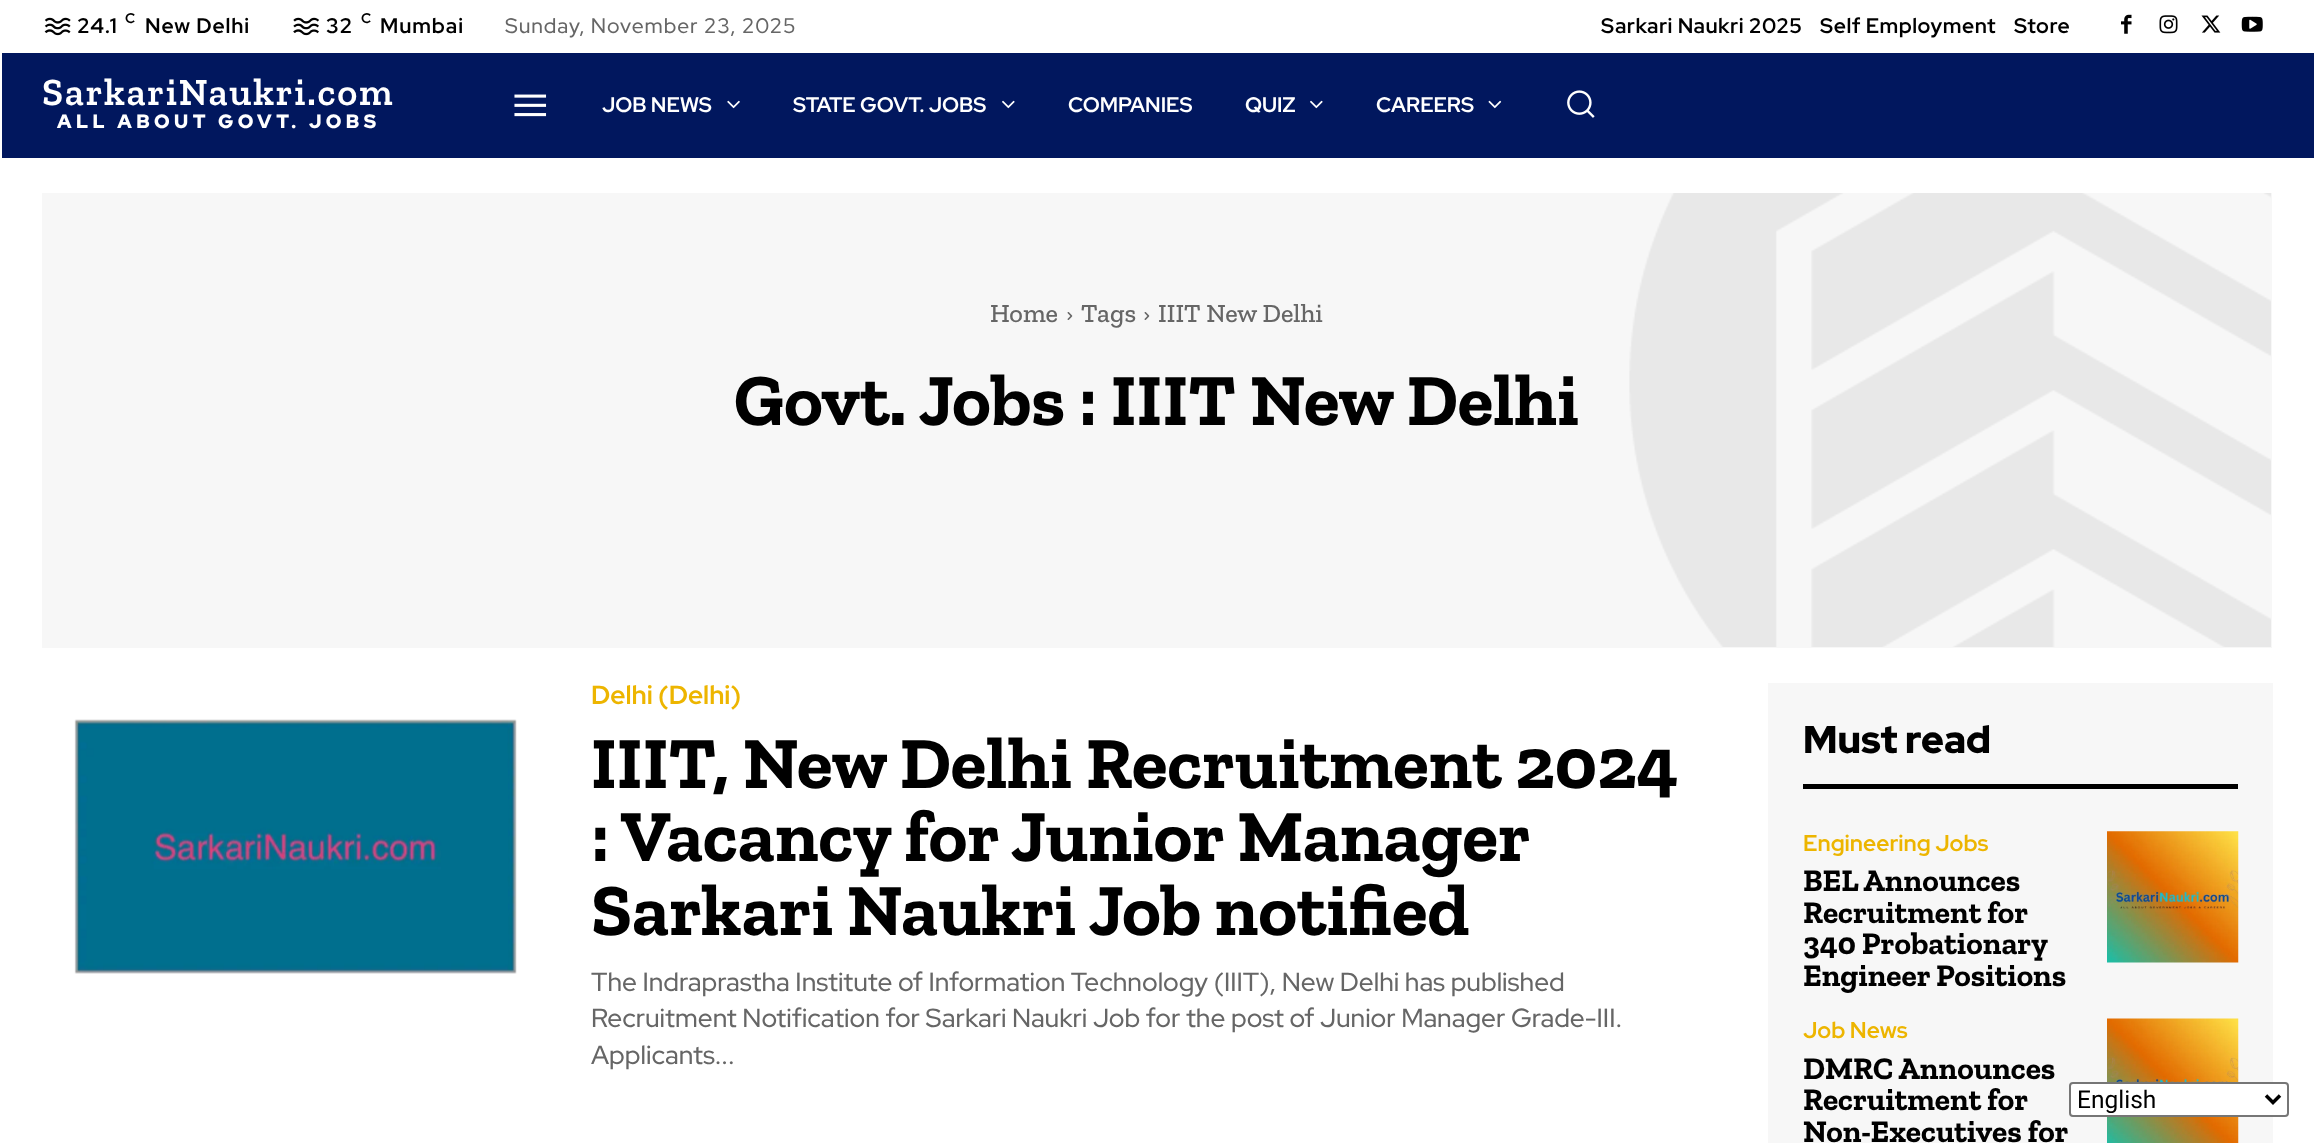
<!DOCTYPE html>
<meta charset="utf-8">
<style>body { margin: 0 } canvas { display: block }</style>
<canvas id="canvas" width="2314" height="1143"></canvas>
<script type="module">
  const canvas = document.getElementById("canvas");
  const ctx = canvas.getContext("2d");
  ctx.miterLimit = 4;
  ctx.fontKerning = "normal";
  async function loadImage(src) {
    const img = new Image();
    img.src = src;
    await img.decode();
    return img;
  }

  ctx.fillStyle = "#ffffff";
  ctx.fillRect(0, 0, 2314, 1143);
  ctx.drawImage(await loadImage("img1.png"), 44, 17, 27, 19);
  ctx.letterSpacing = "0.9px";
  ctx.font = "bold 21px Red Hat Display";
  ctx.fillStyle = "#000000";
  ctx.fillText("24.1", 77, 33);
  ctx.font = "bold 14px Red Hat Display";
  ctx.fillText("C", 125, 23);
  ctx.font = "bold 21px Red Hat Display";
  ctx.fillText("New Delhi", 145, 33);
  ctx.drawImage(await loadImage("img2.png"), 293, 17, 26, 19);
  ctx.fillText("32", 326, 33);
  ctx.font = "bold 14px Red Hat Display";
  ctx.fillText("C", 361, 23);
  ctx.font = "bold 21px Red Hat Display";
  ctx.fillText("Mumbai", 380, 33);
  ctx.font = "500 21px Red Hat Display";
  ctx.fillStyle = "#666666";
  ctx.fillText("Sunday, November 23, 2025", 505, 33);
  ctx.letterSpacing = "0.5px";
  ctx.font = "bold 21px Red Hat Display";
  ctx.fillStyle = "#000000";
  ctx.fillText("Sarkari Naukri 2025", 1601, 33);
  ctx.fillText("Self Employment", 1820, 33);
  ctx.fillText("Store", 2014, 33);
  ctx.drawImage(await loadImage("img3.png"), 2121, 14, 11, 20);
  ctx.drawImage(await loadImage("img4.png"), 2159, 15, 19, 19);
  ctx.drawImage(await loadImage("img5.png"), 2201, 15, 20, 18);
  ctx.drawImage(await loadImage("img6.png"), 2241, 16, 22, 16);
  ctx.fillStyle = "#01175e";
  ctx.fillRect(2, 53, 2312, 105);
  ctx.letterSpacing = "1.75px";
  ctx.font = "600 38.5px Zilla Slab";
  ctx.fillStyle = "#ffffff";
  ctx.fillText("SarkariNaukri.com", 42, 105);
  ctx.letterSpacing = "4.4px";
  ctx.font = "900 19.25px Red Hat Display";
  ctx.fillText("ALL ABOUT GOVT. JOBS", 57, 128);
  ctx.drawImage(await loadImage("img7.png"), 514, 94, 33, 23);
  ctx.letterSpacing = "0px";
  ctx.font = "bold 21px Red Hat Display";
  ctx.fillText("JOB NEWS", 602, 112);
  ctx.drawImage(await loadImage("img8.png"), 727, 100, 13, 9);
  ctx.fillText("STATE GOVT. JOBS", 793, 112);
  ctx.drawImage(await loadImage("img9.png"), 1002, 100, 13, 9);
  ctx.fillText("COMPANIES", 1068, 112);
  ctx.fillText("QUIZ", 1245, 112);
  ctx.drawImage(await loadImage("img9.png"), 1310, 100, 13, 9);
  ctx.fillText("CAREERS", 1376, 112);
  ctx.drawImage(await loadImage("img10.png"), 1488, 100, 14, 9);
  ctx.drawImage(await loadImage("img11.png"), 1567, 90, 28, 28);
  ctx.fillStyle = "#f7f7f7";
  ctx.fillRect(42, 193, 2230, 455);
  ctx.drawImage(await loadImage("img12.png"), 1629, 193, 642, 454);
  ctx.font = "500 26.25px Zilla Slab";
  ctx.fillStyle = "#666666";
  ctx.fillText("Home", 990, 322);
  ctx.drawImage(await loadImage("img13.png"), 1067, 312, 6, 8);
  ctx.fillText("Tags", 1081, 322);
  ctx.drawImage(await loadImage("img13.png"), 1144, 312, 6, 8);
  ctx.fillText("IIIT New Delhi", 1158, 322);
  ctx.font = "bold 73.5px Zilla Slab";
  ctx.fillStyle = "#000000";
  ctx.fillText("Govt. Jobs : IIIT New Delhi", 734, 425);
  ctx.drawImage(await loadImage("img14.png"), 74, 719, 443, 255);
  ctx.font = "bold 26.25px Red Hat Display";
  ctx.fillStyle = "#edb500";
  ctx.fillText("Delhi (Delhi)", 591, 704);
  ctx.font = "bold 73.5px Zilla Slab";
  ctx.fillStyle = "#000000";
  ctx.fillText("IIIT, New Delhi Recruitment 2024", 591, 788);
  ctx.fillText(": Vacancy for Junior Manager", 591, 861);
  ctx.fillText("Sarkari Naukri Job notified", 591, 935);
  ctx.font = "500 26.25px Red Hat Display";
  ctx.fillStyle = "#666666";
  ctx.fillText("The Indraprastha Institute of Information Technology (IIIT), New Delhi has published", 591, 991);
  ctx.fillText("Recruitment Notification for Sarkari Naukri Job for the post of Junior Manager Grade-III.", 591, 1027);
  ctx.fillText("Applicants...", 591, 1064);
  ctx.fillStyle = "#f7f7f7";
  ctx.fillRect(1768, 683, 505, 460);
  ctx.fillStyle = "#000000";
  ctx.fillRect(1803, 784, 435, 5);
  ctx.font = "900 38.5px Red Hat Display";
  ctx.fillText("Must read", 1803, 753);
  ctx.font = "bold 22.75px Red Hat Display";
  ctx.fillStyle = "#edb500";
  ctx.fillText("Engineering Jobs", 1803, 851);
  ctx.font = "bold 31.5px Zilla Slab";
  ctx.fillStyle = "#000000";
  ctx.fillText("BEL Announces", 1803, 891);
  ctx.fillText("Recruitment for", 1803, 923);
  ctx.fillText("340 Probationary", 1803, 954);
  ctx.fillText("Engineer Positions", 1803, 986);
  ctx.drawImage(await loadImage("img15.png"), 2107, 831, 132, 132);
  ctx.font = "bold 22.75px Red Hat Display";
  ctx.fillStyle = "#edb500";
  ctx.fillText("Job News", 1803, 1038);
  ctx.font = "bold 31.5px Zilla Slab";
  ctx.fillStyle = "#000000";
  ctx.fillText("DMRC Announces", 1803, 1079);
  ctx.fillText("Recruitment for", 1803, 1110);
  ctx.fillText("Non-Executives for", 1803, 1142);
  ctx.drawImage(await loadImage("img16.png"), 2107, 1018, 132, 125);
  ctx.fillStyle = "#ffffff";
  ctx.beginPath();
  ctx.roundRect(2070, 1083, 218, 33, 3);
  ctx.fill();
  ctx.strokeStyle = "#767676";
  ctx.lineWidth = 2;
  ctx.stroke();
  ctx.beginPath();
  ctx.moveTo(2266, 1095.5);
  ctx.lineTo(2273, 1102.5);
  ctx.lineTo(2280, 1095.5);
  ctx.strokeStyle = "#000000";
  ctx.lineWidth = 3.5;
  ctx.stroke();
  ctx.font = "24.5px Roboto";
  ctx.fillStyle = "#000000";
  ctx.fillText("English", 2077, 1108);
</script>
